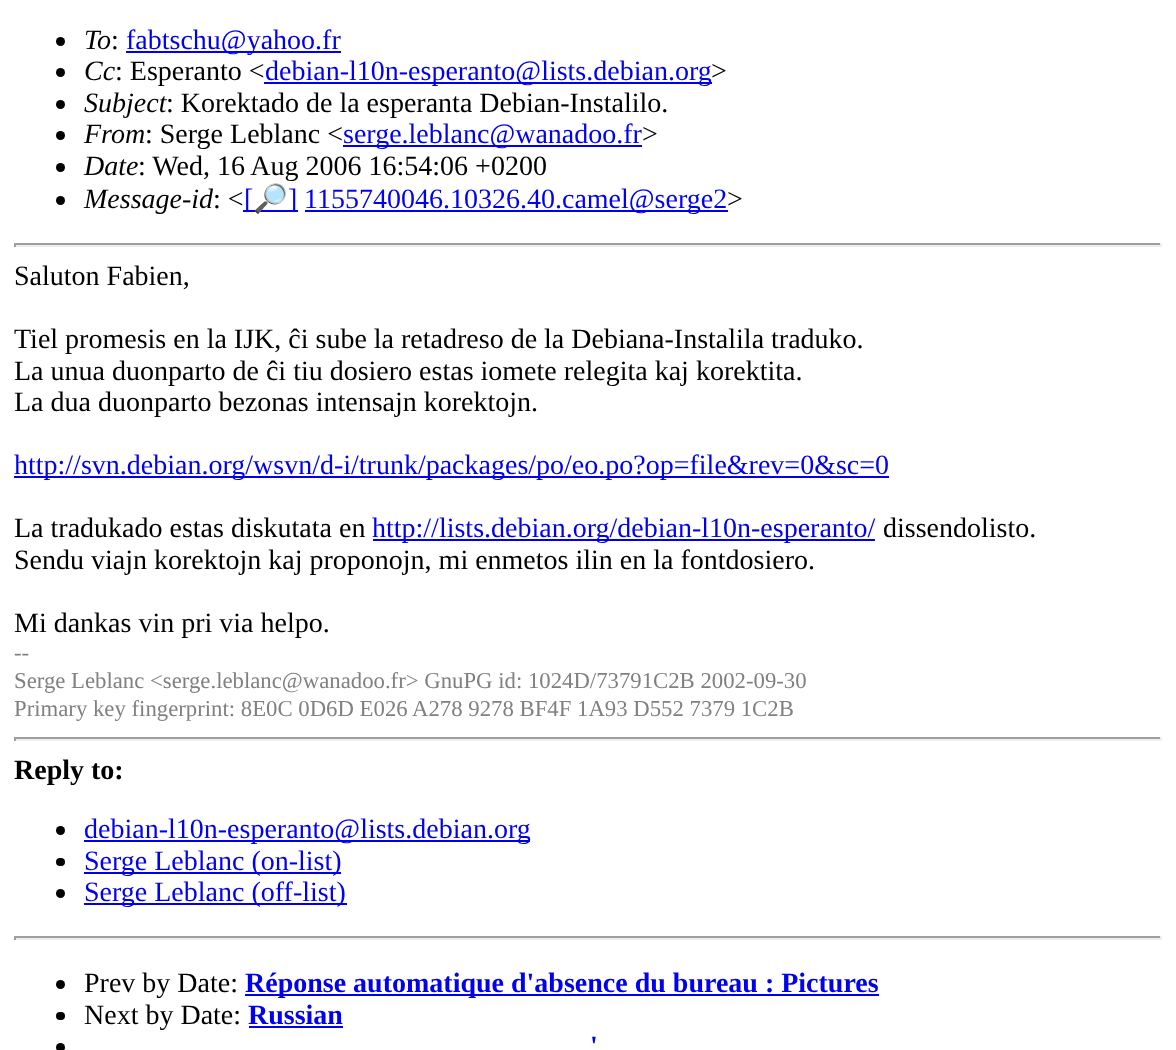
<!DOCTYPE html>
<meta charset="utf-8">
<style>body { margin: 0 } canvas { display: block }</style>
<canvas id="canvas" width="1176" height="1050"></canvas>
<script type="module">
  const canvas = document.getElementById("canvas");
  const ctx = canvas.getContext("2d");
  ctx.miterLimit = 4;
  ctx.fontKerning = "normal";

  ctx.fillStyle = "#ffffff";
  ctx.fillRect(0, 0, 1176, 1050);
  ctx.fillStyle = "#000000";
  ctx.beginPath();
  ctx.arc(60.5, 41.5, 4.5, 0, Math.PI * 2);
  ctx.fill();
  ctx.font = "italic 28px Liberation Serif";
  ctx.fillText("To", 84, 49);
  ctx.font = "28px Liberation Serif";
  ctx.fillText(":", 111, 49);
  ctx.fillStyle = "#0000ee";
  ctx.fillRect(126, 51, 215, 2);
  ctx.fillText("fabtschu@yahoo.fr", 126, 49);
  ctx.fillStyle = "#000000";
  ctx.beginPath();
  ctx.arc(60.5, 72.5, 4.5, 0, Math.PI * 2);
  ctx.fill();
  ctx.font = "italic 28px Liberation Serif";
  ctx.fillText("Cc", 84, 80);
  ctx.font = "28px Liberation Serif";
  ctx.fillText(": Esperanto <", 115, 80);
  ctx.fillStyle = "#0000ee";
  ctx.fillRect(264, 82, 448, 2);
  ctx.fillText("debian-l10n-esperanto@lists.debian.org", 265, 80);
  ctx.fillStyle = "#000000";
  ctx.fillText(">", 711, 80);
  ctx.beginPath();
  ctx.arc(60.5, 104.5, 4.5, 0, Math.PI * 2);
  ctx.fill();
  ctx.font = "italic 28px Liberation Serif";
  ctx.fillText("Subject", 84, 112);
  ctx.font = "28px Liberation Serif";
  ctx.fillText(": Korektado de la esperanta Debian-Instalilo.", 166, 112);
  ctx.beginPath();
  ctx.arc(60.5, 135.5, 4.5, 0, Math.PI * 2);
  ctx.fill();
  ctx.font = "italic 28px Liberation Serif";
  ctx.fillText("From", 84, 143);
  ctx.font = "28px Liberation Serif";
  ctx.fillText(": Serge Leblanc <", 145, 143);
  ctx.fillStyle = "#0000ee";
  ctx.fillRect(343, 145, 299, 2);
  ctx.fillText("serge.leblanc@wanadoo.fr", 343, 143);
  ctx.fillStyle = "#000000";
  ctx.fillText(">", 642, 143);
  ctx.beginPath();
  ctx.arc(60.5, 167.5, 4.5, 0, Math.PI * 2);
  ctx.fill();
  ctx.font = "italic 28px Liberation Serif";
  ctx.fillText("Date", 84, 175);
  ctx.font = "28px Liberation Serif";
  ctx.fillText(": Wed, 16 Aug 2006 16:54:06 +0200", 138, 175);
  ctx.beginPath();
  ctx.arc(60.5, 200.5, 4.5, 0, Math.PI * 2);
  ctx.fill();
  ctx.font = "italic 28px Liberation Serif";
  ctx.fillText("Message-id", 84, 208);
  ctx.font = "28px Liberation Serif";
  ctx.fillText(": <", 213, 208);
  ctx.fillStyle = "#0000ee";
  ctx.fillRect(243, 210, 55, 2);
  ctx.fillText("[", 244, 208);
  ctx.font = "28px Noto Color Emoji";
  ctx.fillText("🔎", 253, 208);
  ctx.font = "28px Liberation Serif";
  ctx.fillText("]", 288, 208);
  ctx.fillRect(305, 210, 423, 2);
  ctx.fillText("1155740046.10326.40.camel@serge2", 304, 208);
  ctx.fillStyle = "#000000";
  ctx.fillText(">", 727, 208);
  ctx.fillStyle = "#9f9f9f";
  ctx.fillRect(14, 243, 1148, 2);
  ctx.fillStyle = "#eeeeee";
  ctx.fillRect(1160, 243, 2, 4);
  ctx.fillRect(14, 245, 1148, 2);
  ctx.fillStyle = "#9f9f9f";
  ctx.fillRect(14, 243, 2, 4);
  ctx.fillStyle = "#000000";
  ctx.fillText("Saluton Fabien,", 14, 285);
  ctx.fillText("Tiel promesis en la IJK, ĉi sube la retadreso de la Debiana-Instalila traduko.", 14, 348);
  ctx.fillText("La unua duonparto de ĉi tiu dosiero estas iomete relegita kaj korektita.", 14, 380);
  ctx.fillText("La dua duonparto bezonas intensajn korektojn.", 14, 411);
  ctx.fillStyle = "#0000ee";
  ctx.fillRect(14, 476, 875, 2);
  ctx.fillText("http://svn.debian.org/wsvn/d-i/trunk/packages/po/eo.po?op=file&rev=0&sc=0", 14, 474);
  ctx.fillStyle = "#000000";
  ctx.fillText("La tradukado estas diskutata en", 14, 537);
  ctx.fillStyle = "#0000ee";
  ctx.fillRect(373, 539, 502, 2);
  ctx.fillText("http://lists.debian.org/debian-l10n-esperanto/", 372, 537);
  ctx.fillStyle = "#000000";
  ctx.fillText("dissendolisto.", 883, 537);
  ctx.fillText("Sendu viajn korektojn kaj proponojn, mi enmetos ilin en la fontdosiero.", 14, 569);
  ctx.fillText("Mi dankas vin pri via helpo.", 14, 632);
  ctx.font = "22.75px Liberation Serif";
  ctx.fillStyle = "#808080";
  ctx.fillText("--", 14, 660);
  ctx.fillText("Serge Leblanc <serge.leblanc@wanadoo.fr> GnuPG id: 1024D/73791C2B 2002-09-30", 14, 688);
  ctx.fillText("Primary key fingerprint: 8E0C 0D6D E026 A278 9278 BF4F 1A93 D552 7379 1C2B", 14, 716);
  ctx.fillStyle = "#9f9f9f";
  ctx.fillRect(14, 737, 1148, 2);
  ctx.fillStyle = "#eeeeee";
  ctx.fillRect(1160, 737, 2, 4);
  ctx.fillRect(14, 739, 1148, 2);
  ctx.fillStyle = "#9f9f9f";
  ctx.fillRect(14, 737, 2, 4);
  ctx.font = "bold 28px Liberation Serif";
  ctx.fillStyle = "#000000";
  ctx.fillText("Reply to:", 14, 779);
  ctx.beginPath();
  ctx.arc(60.5, 830.5, 4.5, 0, Math.PI * 2);
  ctx.fill();
  ctx.fillStyle = "#0000ee";
  ctx.fillRect(84, 840, 446, 2);
  ctx.font = "28px Liberation Serif";
  ctx.fillText("debian-l10n-esperanto@lists.debian.org", 84, 838);
  ctx.fillStyle = "#000000";
  ctx.beginPath();
  ctx.roundRect(56, 858, 9, 8, 4);
  ctx.fill();
  ctx.fillStyle = "#0000ee";
  ctx.fillRect(84, 872, 257, 2);
  ctx.fillText("Serge Leblanc (on-list)", 84, 870);
  ctx.fillStyle = "#000000";
  ctx.beginPath();
  ctx.arc(60.5, 893.5, 4.5, 0, Math.PI * 2);
  ctx.fill();
  ctx.fillStyle = "#0000ee";
  ctx.fillRect(84, 903, 263, 2);
  ctx.fillText("Serge Leblanc (off-list)", 84, 901);
  ctx.fillStyle = "#9f9f9f";
  ctx.fillRect(14, 936, 1148, 2);
  ctx.fillStyle = "#eeeeee";
  ctx.fillRect(1160, 936, 2, 4);
  ctx.fillRect(14, 938, 1148, 2);
  ctx.fillStyle = "#9f9f9f";
  ctx.fillRect(14, 936, 2, 4);
  ctx.fillStyle = "#000000";
  ctx.beginPath();
  ctx.arc(60.5, 984.5, 4.5, 0, Math.PI * 2);
  ctx.fill();
  ctx.fillText("Prev by Date:", 84, 992);
  ctx.fillStyle = "#0000ee";
  ctx.fillRect(245, 994, 634, 2);
  ctx.font = "bold 28px Liberation Serif";
  ctx.fillText("Réponse automatique d'absence du bureau : Pictures", 245, 992);
  ctx.fillStyle = "#000000";
  ctx.beginPath();
  ctx.roundRect(56, 1012, 9, 8, 4);
  ctx.fill();
  ctx.font = "28px Liberation Serif";
  ctx.fillText("Next by Date:", 84, 1024);
  ctx.font = "bold 28px Liberation Serif";
  ctx.fillStyle = "#0000ee";
  ctx.fillText("Russian", 248, 1024);
  ctx.fillRect(249, 1026, 94, 2);
  ctx.fillText("'", 590, 1055);
  ctx.fillStyle = "#000000";
  ctx.beginPath();
  ctx.arc(60.5, 1047.5, 4.5, 0, Math.PI * 2);
  ctx.fill();
</script>
